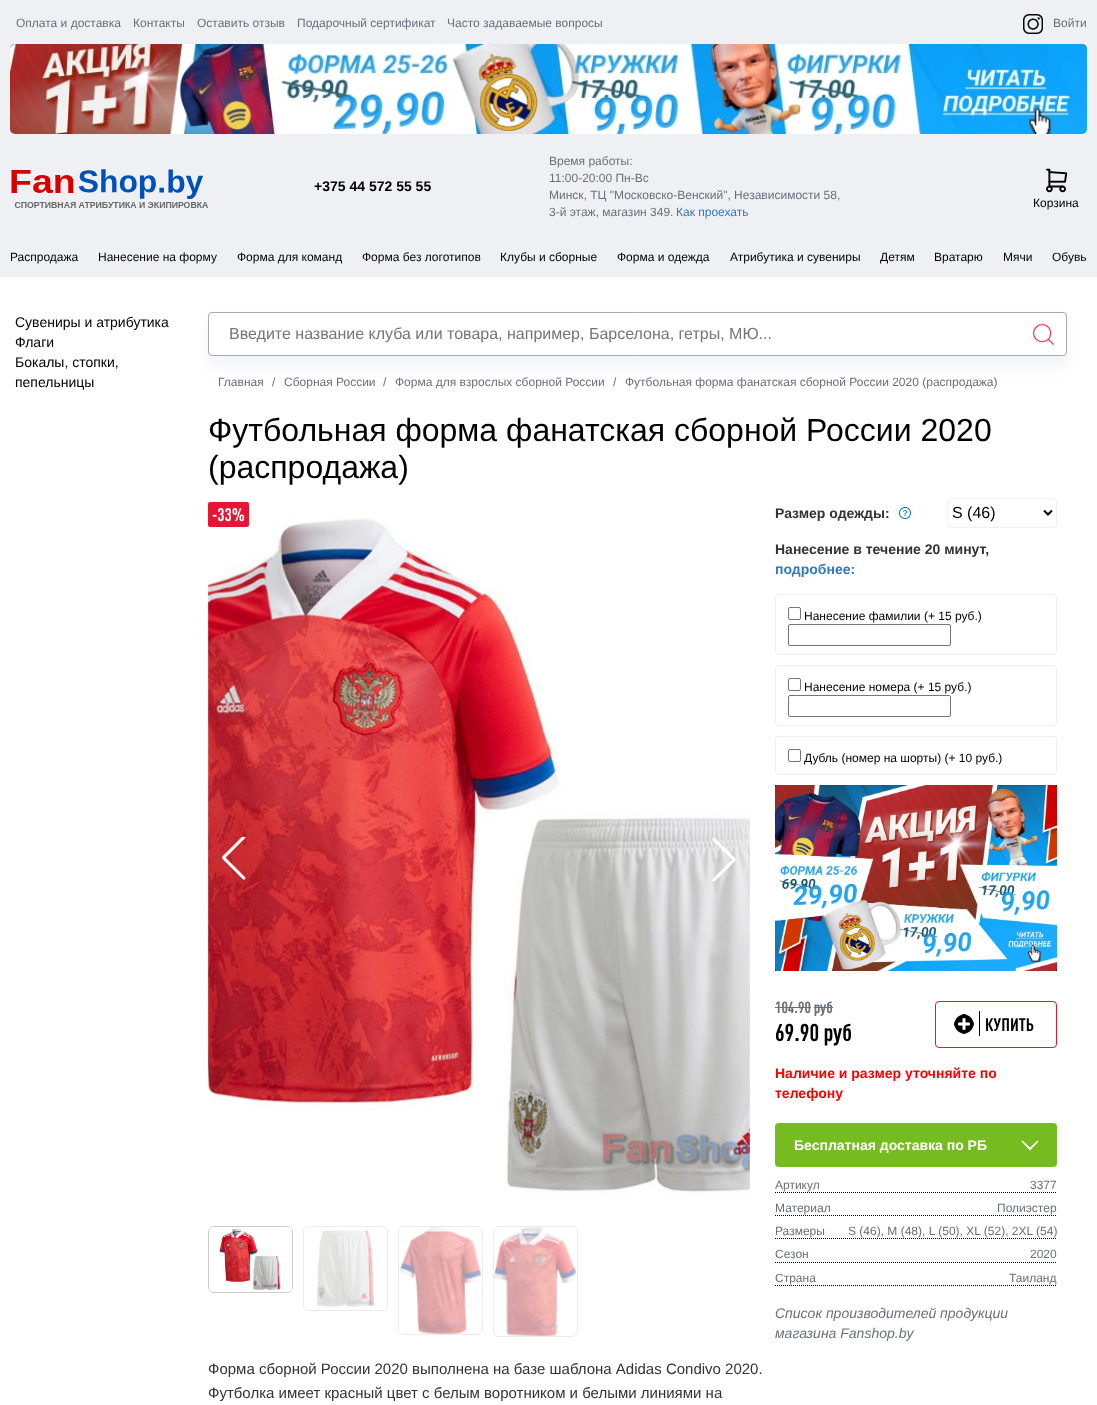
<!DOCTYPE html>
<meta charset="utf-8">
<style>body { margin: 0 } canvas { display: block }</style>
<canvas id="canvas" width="1097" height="1405"></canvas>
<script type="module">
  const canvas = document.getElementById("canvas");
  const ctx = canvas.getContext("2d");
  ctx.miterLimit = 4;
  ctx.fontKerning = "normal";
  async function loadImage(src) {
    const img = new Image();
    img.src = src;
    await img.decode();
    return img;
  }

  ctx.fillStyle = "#ffffff";
  ctx.fillRect(0, 0, 1097, 1405);
  ctx.fillStyle = "#eef0f4";
  ctx.fillRect(0, 0, 1097, 277);
  ctx.font = "12px Liberation Sans";
  ctx.fillStyle = "#68707c";
  ctx.fillText("Оплата и доставка", 16, 27);
  ctx.fillText("Контакты", 133, 27);
  ctx.fillText("Оставить отзыв", 197, 27);
  ctx.fillText("Подарочный сертификат", 297, 27);
  ctx.fillText("Часто задаваемые вопросы", 447, 27);
  ctx.drawImage(await loadImage("img1.png"), 1023, 14, 20, 20);
  ctx.fillText("Войти", 1053, 27);
  ctx.drawImage(await loadImage("img2.png"), 10, 44, 1077, 90);
  ctx.drawImage(await loadImage("img3.png"), 11, 169, 197, 39);
  ctx.font = "bold 14px Liberation Sans";
  ctx.fillStyle = "#000000";
  ctx.fillText("+375 44 572 55 55", 314, 191);
  ctx.font = "12px Liberation Sans";
  ctx.fillStyle = "#68707c";
  ctx.fillText("Время работы:", 549, 165);
  ctx.fillText("11:00-20:00 Пн-Вс", 549, 182);
  ctx.fillText("Минск, ТЦ \"Московско-Венский\", Независимости 58,", 549, 199);
  ctx.fillText("3-й этаж, магазин 349.", 549, 216);
  ctx.fillStyle = "#337ab7";
  ctx.fillText("Как проехать", 676, 216);
  ctx.drawImage(await loadImage("img4.png"), 1046, 168, 22, 25);
  ctx.fillStyle = "#000000";
  ctx.fillText("Корзина", 1033, 207);
  ctx.fillText("Распродажа", 10, 261);
  ctx.fillText("Нанесение на форму", 98, 261);
  ctx.fillText("Форма для команд", 237, 261);
  ctx.fillText("Форма без логотипов", 362, 261);
  ctx.fillText("Клубы и сборные", 500, 261);
  ctx.fillText("Форма и одежда", 617, 261);
  ctx.fillText("Атрибутика и сувениры", 730, 261);
  ctx.fillText("Детям", 880, 261);
  ctx.fillText("Вратарю", 934, 261);
  ctx.fillText("Мячи", 1003, 261);
  ctx.fillText("Обувь", 1052, 261);
  ctx.font = "14px Liberation Sans";
  ctx.fillText("Сувениры и атрибутика", 15, 327);
  ctx.fillText("Флаги", 15, 347);
  ctx.fillText("Бокалы, стопки,", 15, 367);
  ctx.fillText("пепельницы", 15, 387);
  ctx.fillStyle = "rgba(83, 102, 160, 0.08)";
  ctx.filter = "blur(7px)";
  ctx.beginPath();
  ctx.roundRect(208, 322, 859, 44, 4);
  ctx.fill();
  ctx.filter = "none";
  ctx.fillStyle = "#ffffff";
  ctx.beginPath();
  ctx.roundRect(208.5, 312.5, 858, 43, 3.5);
  ctx.fill();
  ctx.strokeStyle = "#aaaaaa";
  ctx.stroke();
  ctx.font = "16px Liberation Sans";
  ctx.fillStyle = "#757575";
  ctx.fillText("Введите название клуба или товара, например, Барселона, гетры, МЮ...", 229, 339);
  ctx.drawImage(await loadImage("img5.png"), 1032, 323, 23, 23);
  ctx.font = "12px Liberation Sans";
  ctx.fillStyle = "#68707c";
  ctx.fillText("Главная", 218, 386);
  ctx.fillText("/", 272, 386);
  ctx.fillText("Сборная России", 284, 386);
  ctx.fillText("/", 383, 386);
  ctx.fillText("Форма для взрослых сборной России", 395, 386);
  ctx.fillText("/", 613, 386);
  ctx.fillText("Футбольная форма фанатская сборной России 2020 (распродажа)", 625, 386);
  ctx.font = "32px Liberation Sans";
  ctx.fillStyle = "#000000";
  ctx.fillText("Футбольная форма фанатская сборной России 2020", 208, 441);
  ctx.fillText("(распродажа)", 208, 478);
  ctx.drawImage(await loadImage("img6.png"), 208, 518, 542, 676);
  ctx.fillStyle = "#e61532";
  ctx.beginPath();
  ctx.roundRect(208, 502, 41, 25, 2);
  ctx.fill();
  ctx.font = "bold 18px DIN";
  ctx.fillStyle = "#ffffff";
  ctx.fillText("-33%", 212, 521);
  ctx.drawImage(await loadImage("img7.png"), 222, 837, 24, 43);
  ctx.drawImage(await loadImage("img8.png"), 712, 837, 24, 44);
  ctx.beginPath();
  ctx.roundRect(208.5, 1226.5, 84, 66, 5.5);
  ctx.strokeStyle = "#cccccc";
  ctx.stroke();
  ctx.drawImage(await loadImage("img9.png"), 209, 1227, 83, 65);
  ctx.beginPath();
  ctx.roundRect(303.5, 1226.5, 84, 84, 5.5);
  ctx.strokeStyle = "#ebebeb";
  ctx.stroke();
  ctx.drawImage(await loadImage("img10.png"), 316, 1230, 59, 77);
  ctx.beginPath();
  ctx.roundRect(398.5, 1226.5, 84, 108, 5.5);
  ctx.stroke();
  ctx.drawImage(await loadImage("img11.png"), 399, 1227, 83, 107);
  ctx.beginPath();
  ctx.roundRect(493.5, 1226.5, 84, 110, 5.5);
  ctx.stroke();
  ctx.drawImage(await loadImage("img12.png"), 494, 1227, 83, 109);
  ctx.font = "15px Liberation Sans";
  ctx.fillStyle = "#333333";
  ctx.fillText("Форма сборной России 2020 выполнена на базе шаблона Adidas Condivo 2020.", 208, 1374);
  ctx.fillText("Футболка имеет красный цвет с белым воротником и белыми линиями на", 208, 1398);
  ctx.font = "bold 14px Liberation Sans";
  ctx.fillText("Размер одежды:", 775, 518);
  ctx.drawImage(await loadImage("img13.png"), 899, 507, 12, 12);
  ctx.beginPath();
  ctx.roundRect(947.5, 498.5, 109, 29, 3.5);
  ctx.strokeStyle = "#eef0f4";
  ctx.stroke();
  ctx.beginPath();
  ctx.moveTo(1044, 510.5);
  ctx.lineTo(1048, 514.5);
  ctx.lineTo(1052, 510.5);
  ctx.strokeStyle = "#000000";
  ctx.lineWidth = 2;
  ctx.stroke();
  ctx.font = "16px Liberation Sans";
  ctx.fillStyle = "#000000";
  ctx.fillText("S (46)", 952, 518);
  ctx.font = "bold 14px Liberation Sans";
  ctx.fillStyle = "#333333";
  ctx.fillText("Нанесение в течение 20 минут,", 775, 554);
  ctx.fillStyle = "#337ab7";
  ctx.fillText("подробнее:", 775, 574);
  ctx.beginPath();
  ctx.roundRect(775.5, 594.5, 281, 60, 3.5);
  ctx.strokeStyle = "#eceff4";
  ctx.lineWidth = 1;
  ctx.stroke();
  ctx.beginPath();
  ctx.roundRect(788.5, 607.5, 12, 12, 1.5);
  ctx.strokeStyle = "#767676";
  ctx.stroke();
  ctx.font = "12px Liberation Sans";
  ctx.fillStyle = "#000000";
  ctx.fillText("Нанесение фамилии (+ 15 руб.)", 804, 620);
  ctx.beginPath();
  ctx.roundRect(788.5, 624.5, 162, 21, 1.5);
  ctx.stroke();
  ctx.beginPath();
  ctx.roundRect(775.5, 665.5, 281, 60, 3.5);
  ctx.strokeStyle = "#eceff4";
  ctx.stroke();
  ctx.beginPath();
  ctx.roundRect(788.5, 678.5, 12, 12, 1.5);
  ctx.strokeStyle = "#767676";
  ctx.stroke();
  ctx.fillText("Нанесение номера (+ 15 руб.)", 804, 691);
  ctx.beginPath();
  ctx.roundRect(788.5, 695.5, 162, 21, 1.5);
  ctx.stroke();
  ctx.beginPath();
  ctx.roundRect(775.5, 736.5, 281, 38, 3.5);
  ctx.strokeStyle = "#eceff4";
  ctx.stroke();
  ctx.beginPath();
  ctx.roundRect(788.5, 749.5, 12, 12, 1.5);
  ctx.strokeStyle = "#767676";
  ctx.stroke();
  ctx.fillText("Дубль (номер на шорты) (+ 10 руб.)", 804, 762);
  ctx.drawImage(await loadImage("img14.png"), 775, 785, 282, 186);
  ctx.font = "bold 16px DIN";
  ctx.fillStyle = "#68707c";
  ctx.fillText("104.90 руб", 775, 1013);
  ctx.fillRect(775, 1007, 36, 1);
  ctx.fillRect(814, 1007, 19, 1);
  ctx.font = "bold 24px DIN";
  ctx.fillStyle = "#000000";
  ctx.fillText("69.90 руб", 775, 1041);
  ctx.beginPath();
  ctx.roundRect(935.5, 1001.5, 121, 46, 3.5);
  ctx.strokeStyle = "#e61532";
  ctx.stroke();
  ctx.fillRect(979, 1011, 1, 25);
  ctx.drawImage(await loadImage("img15.png"), 954, 1014, 20, 20);
  ctx.font = "bold 18px DIN";
  ctx.fillText("КУПИТЬ", 985, 1031);
  ctx.font = "bold 14px Liberation Sans";
  ctx.fillStyle = "#ff0000";
  ctx.fillText("Наличие и размер уточняйте по", 775, 1078);
  ctx.fillText("телефону", 775, 1098);
  ctx.fillStyle = "#76bc21";
  ctx.beginPath();
  ctx.roundRect(775, 1123, 282, 44, 4);
  ctx.fill();
  ctx.fillStyle = "#ffffff";
  ctx.fillText("Бесплатная доставка по РБ", 794, 1150);
  ctx.beginPath();
  ctx.moveTo(1030, 1150.5);
  ctx.lineTo(1021.5, 1141.5);
  ctx.lineTo(1022.5, 1140.5);
  ctx.lineTo(1030, 1147.5);
  ctx.lineTo(1037.5, 1140.5);
  ctx.lineTo(1038.5, 1141.5);
  ctx.closePath();
  ctx.fill();
  ctx.beginPath();
  ctx.moveTo(775, 1192.5);
  ctx.lineTo(1057, 1192.5);
  ctx.strokeStyle = "#000000";
  ctx.setLineDash([1, 1]);
  ctx.stroke();
  ctx.font = "12px Liberation Sans";
  ctx.fillStyle = "#68707c";
  ctx.fillText("Артикул", 775, 1189);
  ctx.fillText("3377", 1030, 1189);
  ctx.beginPath();
  ctx.moveTo(775, 1215.5);
  ctx.lineTo(1057, 1215.5);
  ctx.stroke();
  ctx.fillText("Материал", 775, 1212);
  ctx.fillText("Полиэстер", 997, 1212);
  ctx.beginPath();
  ctx.moveTo(775, 1238.5);
  ctx.lineTo(1057, 1238.5);
  ctx.stroke();
  ctx.fillText("Размеры", 775, 1235);
  ctx.fillText("S (46), M (48), L (50), XL (52), 2XL (54)", 848, 1235);
  ctx.beginPath();
  ctx.moveTo(775, 1262.5);
  ctx.lineTo(1057, 1262.5);
  ctx.stroke();
  ctx.fillText("Сезон", 775, 1258);
  ctx.fillText("2020", 1030, 1258);
  ctx.beginPath();
  ctx.moveTo(775, 1285.5);
  ctx.lineTo(1057, 1285.5);
  ctx.stroke();
  ctx.fillText("Страна", 775, 1282);
  ctx.fillText("Таиланд", 1009, 1282);
  ctx.font = "italic 14px Liberation Sans";
  ctx.fillText("Список производителей продукции", 775, 1318);
  ctx.fillText("магазина Fanshop.by", 775, 1338);
</script>
